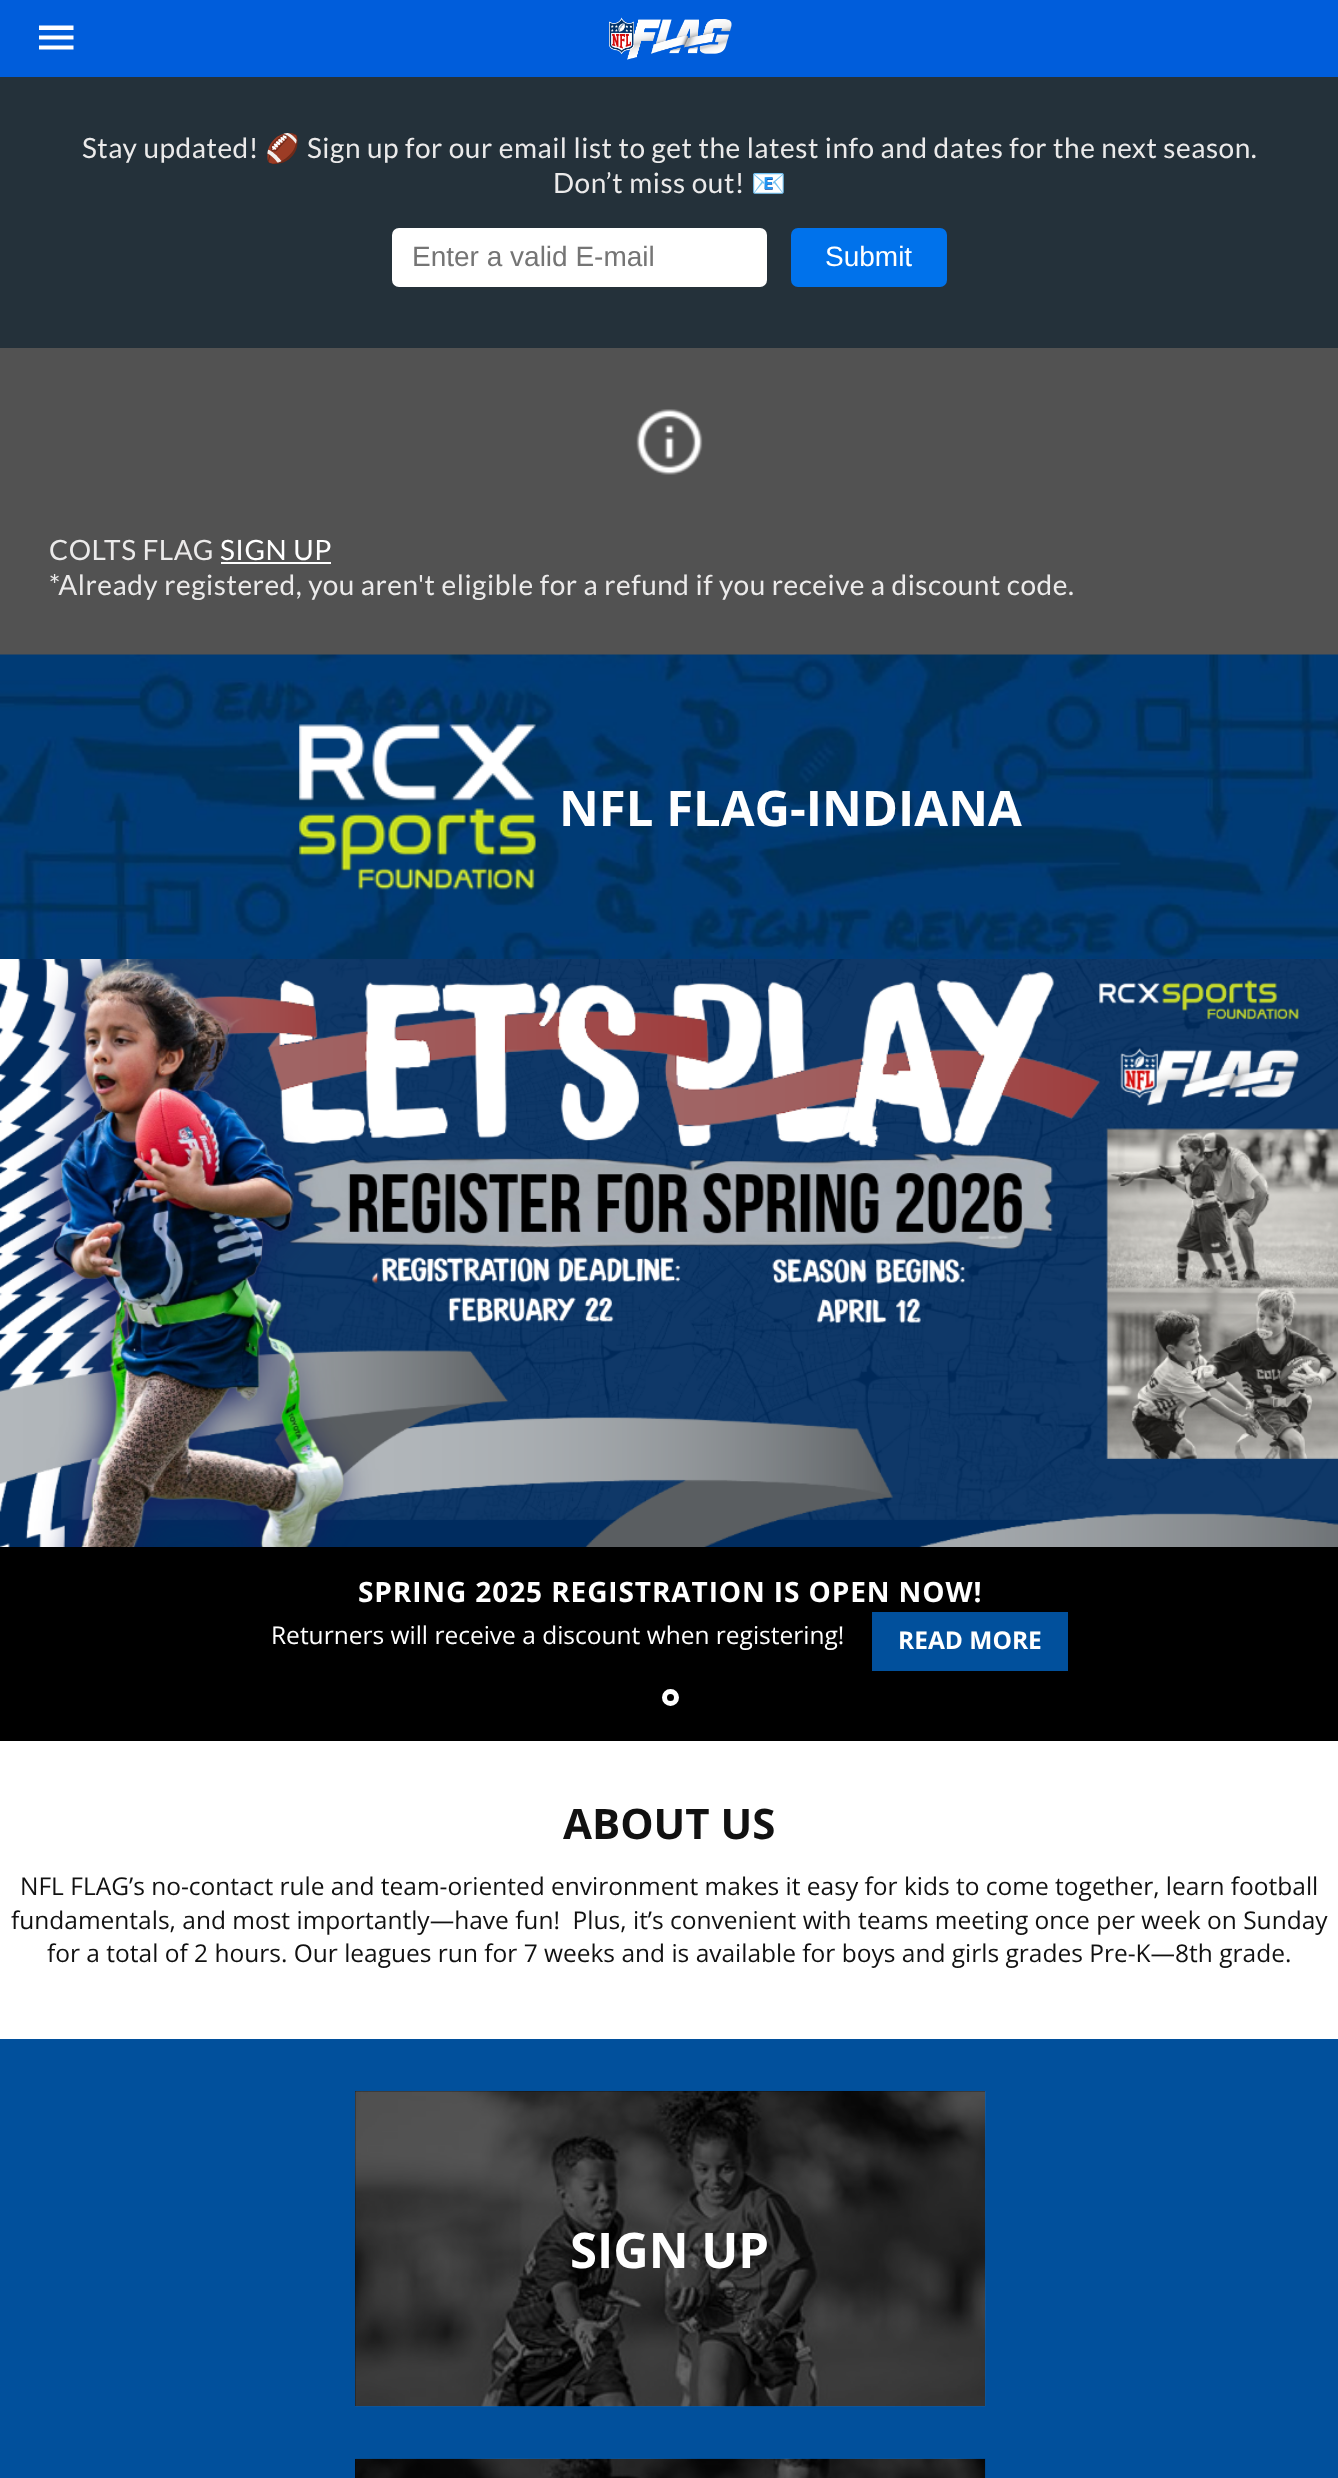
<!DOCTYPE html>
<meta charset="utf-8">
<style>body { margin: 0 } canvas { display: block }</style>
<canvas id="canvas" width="1338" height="2478"></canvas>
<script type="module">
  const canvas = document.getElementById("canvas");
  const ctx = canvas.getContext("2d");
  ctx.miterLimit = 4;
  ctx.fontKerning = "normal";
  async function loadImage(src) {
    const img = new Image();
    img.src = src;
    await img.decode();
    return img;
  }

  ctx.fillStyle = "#24313a";
  ctx.fillRect(0, 0, 1338, 2478);
  ctx.fillStyle = "#005ddb";
  ctx.fillRect(0, 0, 1338, 77);
  ctx.save();
  ctx.beginPath();
  ctx.rect(39, 16, 35, 44);
  ctx.clip();
  ctx.fillStyle = "#ffffff";
  ctx.beginPath();
  ctx.moveTo(38.5, 25.5);
  ctx.lineTo(73.5, 25.5);
  ctx.lineTo(73.5, 30);
  ctx.lineTo(38.5, 30);
  ctx.closePath();
  ctx.moveTo(38.5, 35.5);
  ctx.lineTo(73.5, 35.5);
  ctx.lineTo(73.5, 39.5);
  ctx.lineTo(38.5, 39.5);
  ctx.closePath();
  ctx.moveTo(38.5, 45.5);
  ctx.lineTo(73.5, 45.5);
  ctx.lineTo(73.5, 49.5);
  ctx.lineTo(38.5, 49.5);
  ctx.closePath();
  ctx.fill();
  ctx.restore();
  ctx.drawImage(await loadImage("img1.png"), 609, 17, 123, 43);
  ctx.letterSpacing = "0.53px";
  ctx.font = "28px Lato";
  ctx.fillStyle = "#ebeaea";
  ctx.fillText("Stay updated!", 82, 158);
  ctx.font = "28px Noto Color Emoji";
  ctx.fillText("🏈", 265, 158);
  ctx.font = "28px Lato";
  ctx.fillText("Sign up for our email list to get the latest info and dates for the next season.", 307, 158);
  ctx.fillText("Don’t miss out!", 553, 193);
  ctx.font = "28px Noto Color Emoji";
  ctx.fillText("📧", 751, 193);
  ctx.fillStyle = "#ffffff";
  ctx.beginPath();
  ctx.roundRect(392, 228, 375, 59, 7);
  ctx.fill();
  ctx.letterSpacing = "0px";
  ctx.font = "28px Liberation Sans";
  ctx.fillStyle = "#757575";
  ctx.fillText("Enter a valid E-mail", 412, 266);
  ctx.fillStyle = "#0072eb";
  ctx.beginPath();
  ctx.roundRect(791, 228, 156, 59, 7);
  ctx.fill();
  ctx.fillStyle = "#ffffff";
  ctx.fillText("Submit", 825, 266);
  ctx.fillStyle = "#525252";
  ctx.fillRect(0, 348, 1338, 307);
  ctx.drawImage(await loadImage("img2.png"), 636, 409, 67, 66);
  ctx.letterSpacing = "0.53px";
  ctx.font = "28px Lato";
  ctx.fillStyle = "#ebeaea";
  ctx.fillText("COLTS FLAG", 49, 560);
  ctx.fillStyle = "#ffffff";
  ctx.fillText("SIGN UP", 220, 560);
  ctx.fillRect(221, 562, 110, 2);
  ctx.fillStyle = "#ebeaea";
  ctx.fillText("*Already registered, you aren't eligible for a refund if you receive a discount code.", 49, 595);
  ctx.drawImage(await loadImage("img3.png"), 0, 654, 1338, 305);
  ctx.drawImage(await loadImage("img4.png"), 299, 724, 237, 166);
  ctx.letterSpacing = "0px";
  ctx.font = "bold 49px Open Sans";
  ctx.fillStyle = "#ffffff";
  ctx.fillText("NFL FLAG-INDIANA", 559, 826);
  ctx.drawImage(await loadImage("img5.png"), 0, 959, 1338, 588);
  ctx.fillStyle = "#000000";
  ctx.fillRect(0, 1547, 1338, 194);
  ctx.letterSpacing = "0.9px";
  ctx.font = "bold 28px Open Sans";
  ctx.fillStyle = "#ffffff";
  ctx.fillText("SPRING 2025 REGISTRATION IS OPEN NOW!", 358, 1602);
  ctx.letterSpacing = "0px";
  ctx.font = "24.5px Open Sans";
  ctx.fillText("Returners will receive a discount when registering!", 271, 1644);
  ctx.fillStyle = "#01509c";
  ctx.fillRect(872, 1612, 196, 59);
  ctx.font = "bold 24.5px Open Sans";
  ctx.fillStyle = "#ffffff";
  ctx.fillText("READ MORE", 898, 1649);
  ctx.beginPath();
  ctx.arc(670.5, 1697.5, 6, 0, Math.PI * 2);
  ctx.strokeStyle = "#ffffff";
  ctx.lineWidth = 5;
  ctx.stroke();
  ctx.fillRect(0, 1741, 1338, 298);
  ctx.font = "bold 42px Open Sans";
  ctx.fillStyle = "#111111";
  ctx.fillText("ABOUT US", 563, 1839);
  ctx.font = "24.5px Open Sans";
  ctx.fillText("NFL FLAG’s no-contact rule and team-oriented environment makes it easy for kids to come together, learn football", 20, 1895);
  ctx.fillText("fundamentals, and most importantly—have fun!  Plus, it’s convenient with teams meeting once per week on Sunday", 11, 1929);
  ctx.fillText("for a total of 2 hours. Our leagues run for 7 weeks and is available for boys and girls grades Pre-K—8th grade.", 47, 1962);
  ctx.fillStyle = "#01509c";
  ctx.fillRect(0, 2039, 1338, 439);
  ctx.fillStyle = "#000000";
  ctx.fillRect(355, 2091, 630, 315);
  ctx.drawImage(await loadImage("img6.png"), 355, 2091, 631, 316);
  ctx.font = "bold 49px Open Sans";
  ctx.fillStyle = "#ffffff";
  ctx.fillText("SIGN UP", 570, 2268);
  ctx.fillStyle = "#000000";
  ctx.fillRect(355, 2459, 630, 19);
  ctx.drawImage(await loadImage("img7.png"), 355, 2458, 631, 20);
</script>
